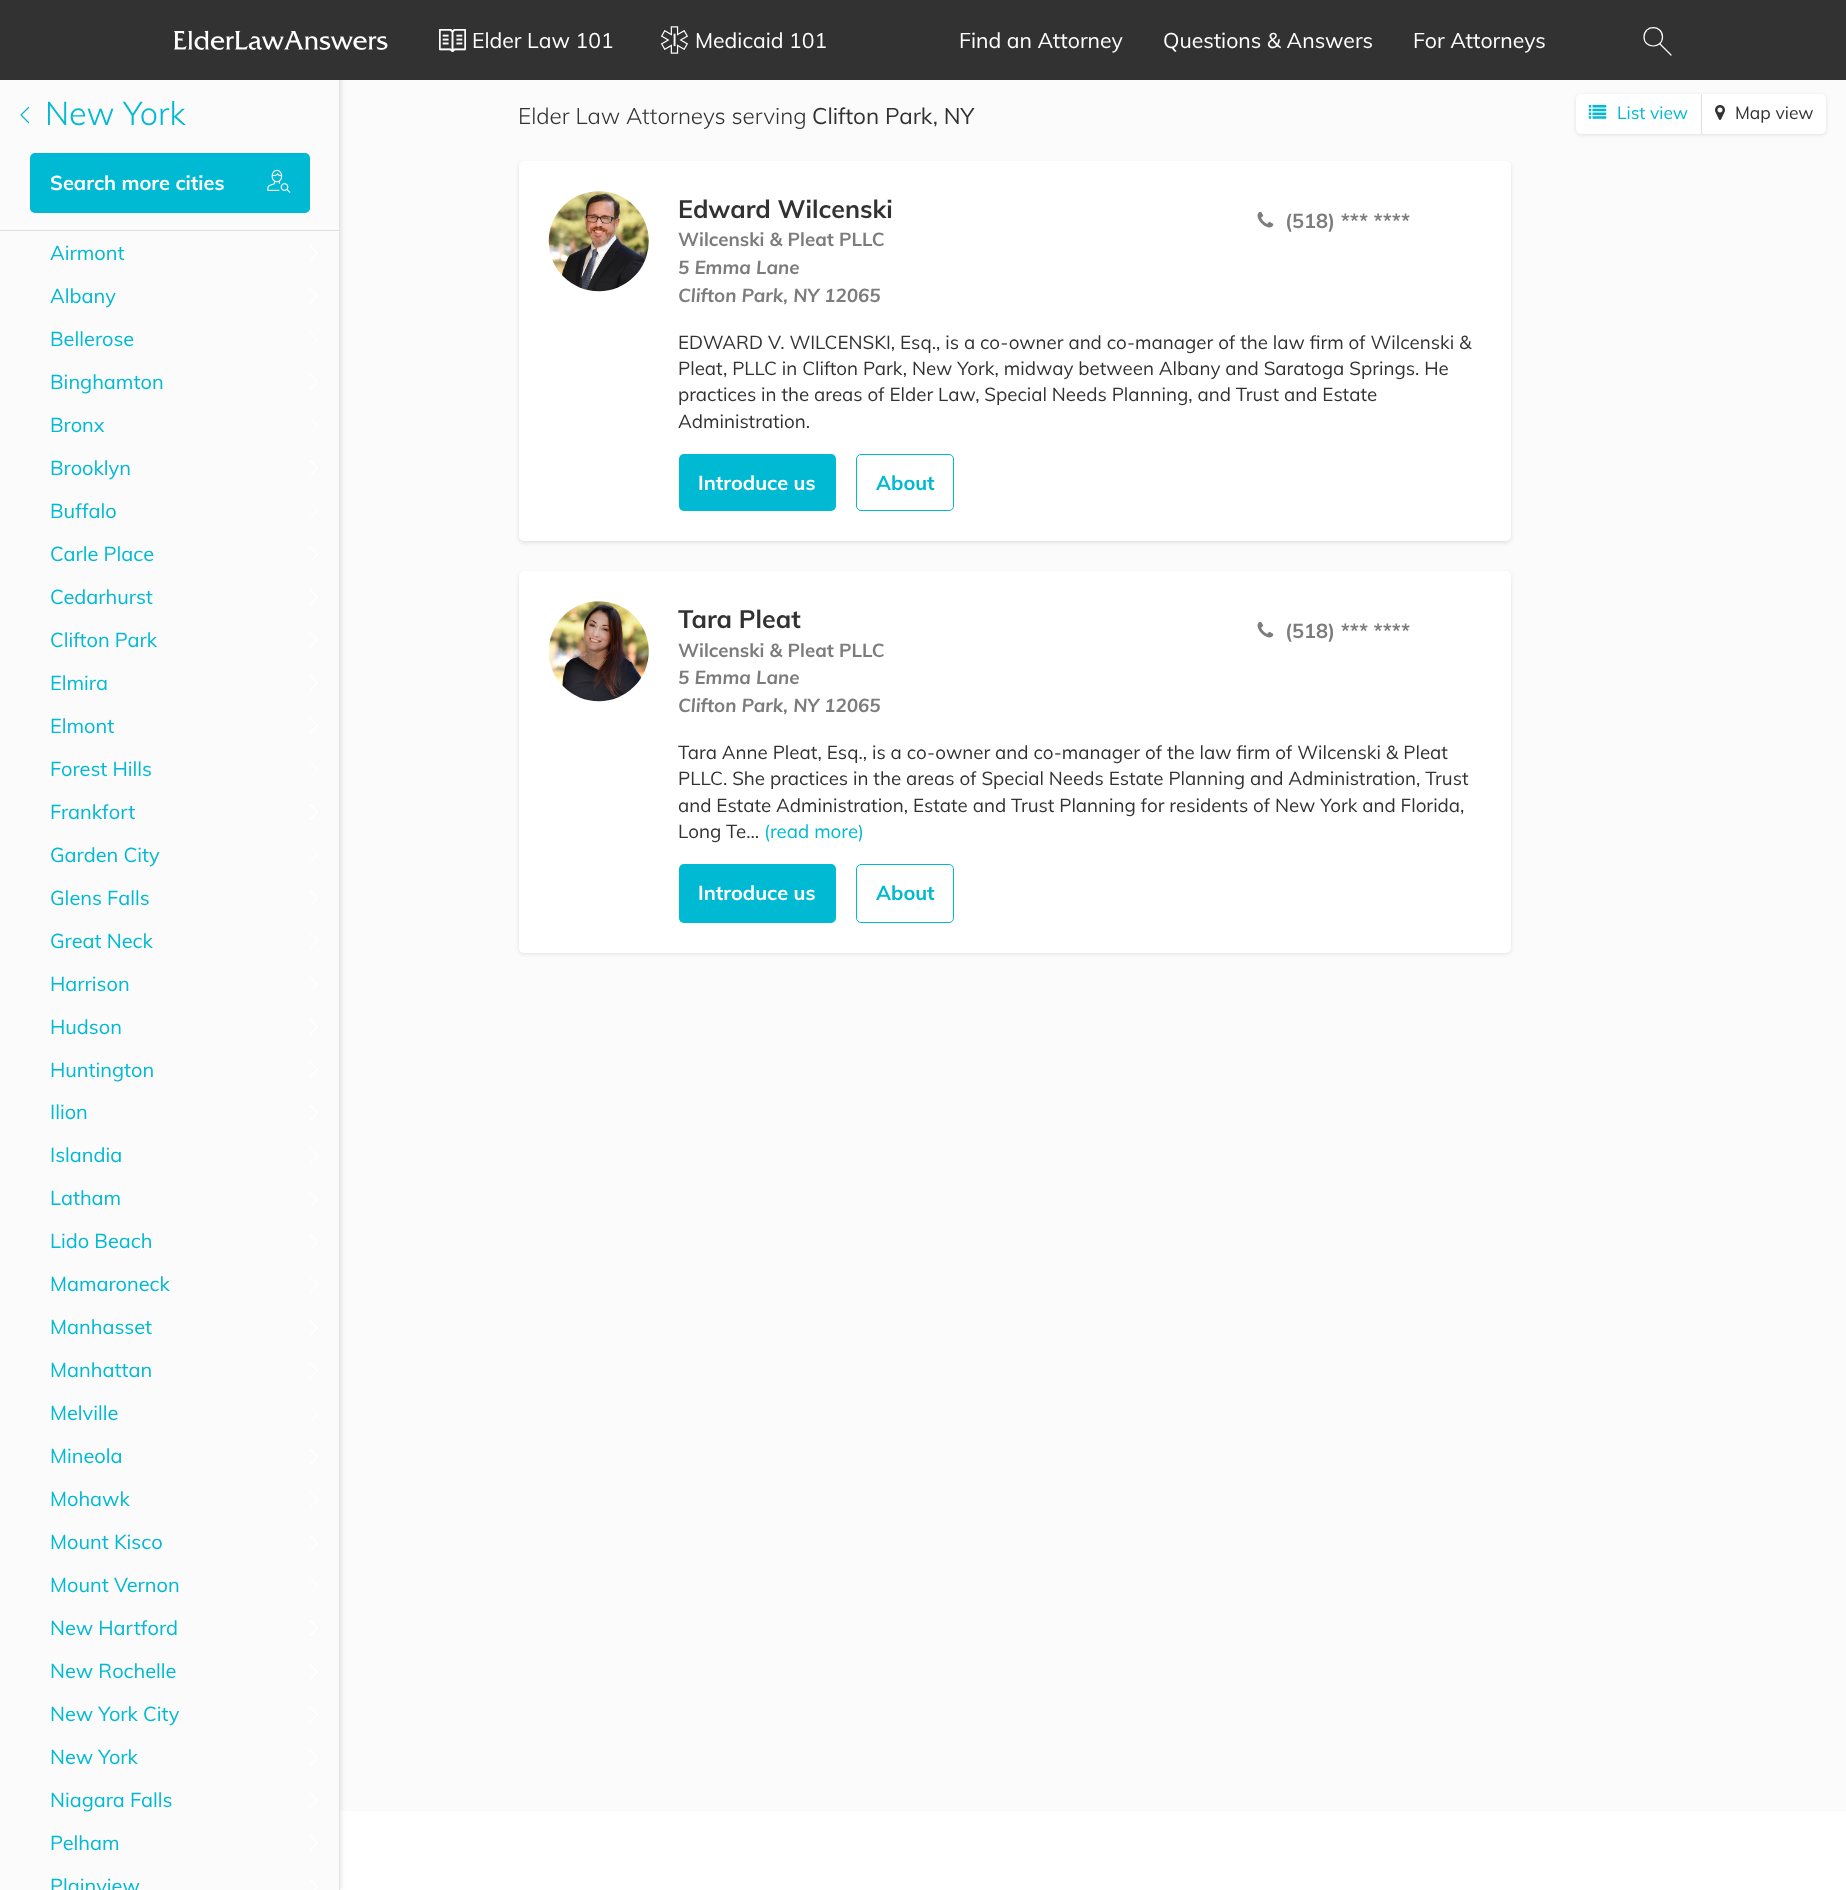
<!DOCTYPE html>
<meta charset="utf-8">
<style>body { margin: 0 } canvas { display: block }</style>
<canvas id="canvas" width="1846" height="1890"></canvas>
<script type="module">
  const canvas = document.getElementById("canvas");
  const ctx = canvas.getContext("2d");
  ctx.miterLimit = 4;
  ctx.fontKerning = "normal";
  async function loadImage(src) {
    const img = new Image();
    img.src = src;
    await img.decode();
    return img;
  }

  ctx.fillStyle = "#ffffff";
  ctx.fillRect(0, 0, 1846, 1890);
  ctx.fillStyle = "#fbfbfb";
  ctx.fillRect(340, 80, 1506, 1731);
  ctx.fillStyle = "rgba(0, 0, 0, 0.1)";
  ctx.filter = "blur(2.5px)";
  ctx.beginPath();
  ctx.rect(1, 75, 340, 1815);
  ctx.fill();
  ctx.filter = "none";
  ctx.fillStyle = "#e2e2e2";
  ctx.fillRect(339, 75, 1, 1815);
  ctx.fillStyle = "#323232";
  ctx.fillRect(0, 0, 1846, 80);
  ctx.drawImage(await loadImage("img1.png"), 174, 30, 214, 20);
  ctx.drawImage(await loadImage("img2.png"), 439, 29, 27, 23);
  ctx.font = "21.25px Muli";
  ctx.fillStyle = "#ffffff";
  ctx.fillText("Elder Law 101", 472, 48);
  ctx.drawImage(await loadImage("img3.png"), 660, 26, 28, 28);
  ctx.fillText("Medicaid 101", 695, 48);
  ctx.fillText("Find an Attorney", 959, 48);
  ctx.fillText("Questions & Answers", 1163, 48);
  ctx.fillText("For Attorneys", 1413, 48);
  ctx.beginPath();
  ctx.moveTo(1662.5, 37);
  ctx.bezierCurveTo(1662.5, 49, 1644, 49, 1644, 37);
  ctx.bezierCurveTo(1644, 24.5, 1662.5, 24.5, 1662.5, 37);
  ctx.closePath();
  ctx.strokeStyle = "#ffffff";
  ctx.lineWidth = 1.2;
  ctx.lineJoin = "round";
  ctx.stroke();
  ctx.beginPath();
  ctx.moveTo(1660, 44);
  ctx.lineTo(1671, 55);
  ctx.lineCap = "round";
  ctx.stroke();
  ctx.fillStyle = "#fbfbfb";
  ctx.fillRect(0, 80, 339, 1810);
  ctx.beginPath();
  ctx.moveTo(28.5, 107.5);
  ctx.lineTo(21, 115);
  ctx.lineTo(28.5, 122.5);
  ctx.strokeStyle = "#00b9d2";
  ctx.stroke();
  ctx.font = "300 32.5px Muli";
  ctx.fillStyle = "#00b9d2";
  ctx.fillText("New York", 45, 125);
  ctx.beginPath();
  ctx.roundRect(30.5, 154.5, 279, 58, 4.5);
  ctx.strokeStyle = "#e0e0e0";
  ctx.lineWidth = 1;
  ctx.lineJoin = "miter";
  ctx.stroke();
  ctx.beginPath();
  ctx.roundRect(30, 153, 280, 60, 5);
  ctx.fill();
  ctx.font = "bold 20px Muli";
  ctx.fillStyle = "#ffffff";
  ctx.fillText("Search more cities", 50, 190);
  ctx.drawImage(await loadImage("img4.png"), 267, 169, 24, 24);
  ctx.fillStyle = "#e0e0e0";
  ctx.fillRect(0, 230, 339, 1);
  ctx.font = "20px Muli";
  ctx.fillStyle = "#00b9d2";
  ctx.fillText("Airmont", 50, 260);
  ctx.save();
  ctx.beginPath();
  ctx.rect(309, 245, 10, 15);
  ctx.clip();
  ctx.beginPath();
  ctx.moveTo(310, 245.5);
  ctx.lineTo(317.5, 253);
  ctx.lineTo(310, 260.5);
  ctx.strokeStyle = "#ffffff";
  ctx.lineWidth = 1.2;
  ctx.lineJoin = "round";
  ctx.stroke();
  ctx.restore();
  ctx.fillText("Albany", 50, 303);
  ctx.beginPath();
  ctx.moveTo(310, 288);
  ctx.lineTo(317.5, 295.5);
  ctx.lineTo(310, 303);
  ctx.strokeStyle = "#ffffff";
  ctx.lineWidth = 1.2;
  ctx.lineJoin = "round";
  ctx.stroke();
  ctx.fillText("Bellerose", 50, 346);
  ctx.save();
  ctx.beginPath();
  ctx.rect(309, 331, 10, 15);
  ctx.clip();
  ctx.beginPath();
  ctx.moveTo(310, 332);
  ctx.lineTo(317.5, 339.5);
  ctx.lineTo(310, 347);
  ctx.stroke();
  ctx.restore();
  ctx.fillText("Binghamton", 50, 389);
  ctx.beginPath();
  ctx.moveTo(310, 374.5);
  ctx.lineTo(317.5, 382);
  ctx.lineTo(310, 389.5);
  ctx.stroke();
  ctx.fillText("Bronx", 50, 432);
  ctx.save();
  ctx.beginPath();
  ctx.rect(309, 418, 10, 15);
  ctx.clip();
  ctx.beginPath();
  ctx.moveTo(310, 418);
  ctx.lineTo(317.5, 425.5);
  ctx.lineTo(310, 433);
  ctx.stroke();
  ctx.restore();
  ctx.fillText("Brooklyn", 50, 475);
  ctx.save();
  ctx.beginPath();
  ctx.rect(309, 460, 10, 15);
  ctx.clip();
  ctx.beginPath();
  ctx.moveTo(310, 460.5);
  ctx.lineTo(317.5, 468);
  ctx.lineTo(310, 475.5);
  ctx.stroke();
  ctx.restore();
  ctx.fillText("Buffalo", 50, 518);
  ctx.beginPath();
  ctx.moveTo(310, 503);
  ctx.lineTo(317.5, 510.5);
  ctx.lineTo(310, 518);
  ctx.stroke();
  ctx.fillText("Carle Place", 50, 561);
  ctx.save();
  ctx.beginPath();
  ctx.rect(309, 546, 10, 15);
  ctx.clip();
  ctx.beginPath();
  ctx.moveTo(310, 547);
  ctx.lineTo(317.5, 554.5);
  ctx.lineTo(310, 562);
  ctx.stroke();
  ctx.restore();
  ctx.fillText("Cedarhurst", 50, 604);
  ctx.beginPath();
  ctx.moveTo(310, 589.5);
  ctx.lineTo(317.5, 597);
  ctx.lineTo(310, 604.5);
  ctx.stroke();
  ctx.fillText("Clifton Park", 50, 647);
  ctx.beginPath();
  ctx.moveTo(310, 632);
  ctx.lineTo(317.5, 639.5);
  ctx.lineTo(310, 647);
  ctx.stroke();
  ctx.fillText("Elmira", 50, 690);
  ctx.save();
  ctx.beginPath();
  ctx.rect(309, 675, 10, 15);
  ctx.clip();
  ctx.beginPath();
  ctx.moveTo(310, 675.5);
  ctx.lineTo(317.5, 683);
  ctx.lineTo(310, 690.5);
  ctx.stroke();
  ctx.restore();
  ctx.fillText("Elmont", 50, 733);
  ctx.beginPath();
  ctx.moveTo(310, 718);
  ctx.lineTo(317.5, 725.5);
  ctx.lineTo(310, 733);
  ctx.stroke();
  ctx.fillText("Forest Hills", 50, 776);
  ctx.save();
  ctx.beginPath();
  ctx.rect(309, 761, 10, 15);
  ctx.clip();
  ctx.beginPath();
  ctx.moveTo(310, 762);
  ctx.lineTo(317.5, 769.5);
  ctx.lineTo(310, 777);
  ctx.stroke();
  ctx.restore();
  ctx.fillText("Frankfort", 50, 819);
  ctx.beginPath();
  ctx.moveTo(310, 804.5);
  ctx.lineTo(317.5, 812);
  ctx.lineTo(310, 819.5);
  ctx.stroke();
  ctx.fillText("Garden City", 50, 862);
  ctx.beginPath();
  ctx.moveTo(310, 847);
  ctx.lineTo(317.5, 854.5);
  ctx.lineTo(310, 862);
  ctx.stroke();
  ctx.fillText("Glens Falls", 50, 905);
  ctx.save();
  ctx.beginPath();
  ctx.rect(309, 890, 10, 15);
  ctx.clip();
  ctx.beginPath();
  ctx.moveTo(310, 890.5);
  ctx.lineTo(317.5, 898);
  ctx.lineTo(310, 905.5);
  ctx.stroke();
  ctx.restore();
  ctx.fillText("Great Neck", 50, 948);
  ctx.beginPath();
  ctx.moveTo(310, 933);
  ctx.lineTo(317.5, 940.5);
  ctx.lineTo(310, 948);
  ctx.stroke();
  ctx.fillText("Harrison", 50, 991);
  ctx.save();
  ctx.beginPath();
  ctx.rect(309, 976, 10, 15);
  ctx.clip();
  ctx.beginPath();
  ctx.moveTo(310, 977);
  ctx.lineTo(317.5, 984.5);
  ctx.lineTo(310, 992);
  ctx.stroke();
  ctx.restore();
  ctx.fillText("Hudson", 50, 1034);
  ctx.beginPath();
  ctx.moveTo(310, 1019.5);
  ctx.lineTo(317.5, 1027);
  ctx.lineTo(310, 1034.5);
  ctx.stroke();
  ctx.fillText("Huntington", 50, 1077);
  ctx.beginPath();
  ctx.moveTo(310, 1062);
  ctx.lineTo(317.5, 1069.5);
  ctx.lineTo(310, 1077);
  ctx.stroke();
  ctx.fillText("Ilion", 50, 1119);
  ctx.save();
  ctx.beginPath();
  ctx.rect(309, 1105, 10, 15);
  ctx.clip();
  ctx.beginPath();
  ctx.moveTo(310, 1105.5);
  ctx.lineTo(317.5, 1113);
  ctx.lineTo(310, 1120.5);
  ctx.stroke();
  ctx.restore();
  ctx.fillText("Islandia", 50, 1162);
  ctx.beginPath();
  ctx.moveTo(310, 1148);
  ctx.lineTo(317.5, 1155.5);
  ctx.lineTo(310, 1163);
  ctx.stroke();
  ctx.fillText("Latham", 50, 1205);
  ctx.save();
  ctx.beginPath();
  ctx.rect(309, 1191, 10, 15);
  ctx.clip();
  ctx.beginPath();
  ctx.moveTo(310, 1192);
  ctx.lineTo(317.5, 1199.5);
  ctx.lineTo(310, 1207);
  ctx.stroke();
  ctx.restore();
  ctx.fillText("Lido Beach", 50, 1248);
  ctx.save();
  ctx.beginPath();
  ctx.rect(309, 1234, 10, 15);
  ctx.clip();
  ctx.beginPath();
  ctx.moveTo(310, 1234.5);
  ctx.lineTo(317.5, 1242);
  ctx.lineTo(310, 1249.5);
  ctx.stroke();
  ctx.restore();
  ctx.fillText("Mamaroneck", 50, 1291);
  ctx.beginPath();
  ctx.moveTo(310, 1277);
  ctx.lineTo(317.5, 1284.5);
  ctx.lineTo(310, 1292);
  ctx.stroke();
  ctx.fillText("Manhasset", 50, 1334);
  ctx.save();
  ctx.beginPath();
  ctx.rect(309, 1320, 10, 15);
  ctx.clip();
  ctx.beginPath();
  ctx.moveTo(310, 1320.5);
  ctx.lineTo(317.5, 1328);
  ctx.lineTo(310, 1335.5);
  ctx.stroke();
  ctx.restore();
  ctx.fillText("Manhattan", 50, 1377);
  ctx.beginPath();
  ctx.moveTo(310, 1363);
  ctx.lineTo(317.5, 1370.5);
  ctx.lineTo(310, 1378);
  ctx.stroke();
  ctx.fillText("Melville", 50, 1420);
  ctx.save();
  ctx.beginPath();
  ctx.rect(309, 1406, 10, 15);
  ctx.clip();
  ctx.beginPath();
  ctx.moveTo(310, 1407);
  ctx.lineTo(317.5, 1414.5);
  ctx.lineTo(310, 1422);
  ctx.stroke();
  ctx.restore();
  ctx.fillText("Mineola", 50, 1463);
  ctx.save();
  ctx.beginPath();
  ctx.rect(309, 1449, 10, 15);
  ctx.clip();
  ctx.beginPath();
  ctx.moveTo(310, 1449.5);
  ctx.lineTo(317.5, 1457);
  ctx.lineTo(310, 1464.5);
  ctx.stroke();
  ctx.restore();
  ctx.fillText("Mohawk", 50, 1506);
  ctx.beginPath();
  ctx.moveTo(310, 1492);
  ctx.lineTo(317.5, 1499.5);
  ctx.lineTo(310, 1507);
  ctx.stroke();
  ctx.fillText("Mount Kisco", 50, 1549);
  ctx.save();
  ctx.beginPath();
  ctx.rect(309, 1535, 10, 15);
  ctx.clip();
  ctx.beginPath();
  ctx.moveTo(310, 1535.5);
  ctx.lineTo(317.5, 1543);
  ctx.lineTo(310, 1550.5);
  ctx.stroke();
  ctx.restore();
  ctx.fillText("Mount Vernon", 50, 1592);
  ctx.beginPath();
  ctx.moveTo(310, 1578);
  ctx.lineTo(317.5, 1585.5);
  ctx.lineTo(310, 1593);
  ctx.stroke();
  ctx.fillText("New Hartford", 50, 1635);
  ctx.beginPath();
  ctx.moveTo(310, 1620.5);
  ctx.lineTo(317.5, 1628);
  ctx.lineTo(310, 1635.5);
  ctx.stroke();
  ctx.fillText("New Rochelle", 50, 1678);
  ctx.save();
  ctx.beginPath();
  ctx.rect(309, 1664, 10, 15);
  ctx.clip();
  ctx.beginPath();
  ctx.moveTo(310, 1664.5);
  ctx.lineTo(317.5, 1672);
  ctx.lineTo(310, 1679.5);
  ctx.stroke();
  ctx.restore();
  ctx.fillText("New York City", 50, 1721);
  ctx.beginPath();
  ctx.moveTo(310, 1707);
  ctx.lineTo(317.5, 1714.5);
  ctx.lineTo(310, 1722);
  ctx.stroke();
  ctx.fillText("New York", 50, 1764);
  ctx.save();
  ctx.beginPath();
  ctx.rect(309, 1750, 10, 15);
  ctx.clip();
  ctx.beginPath();
  ctx.moveTo(310, 1750.5);
  ctx.lineTo(317.5, 1758);
  ctx.lineTo(310, 1765.5);
  ctx.stroke();
  ctx.restore();
  ctx.fillText("Niagara Falls", 50, 1807);
  ctx.beginPath();
  ctx.moveTo(310, 1793);
  ctx.lineTo(317.5, 1800.5);
  ctx.lineTo(310, 1808);
  ctx.stroke();
  ctx.fillText("Pelham", 50, 1850);
  ctx.beginPath();
  ctx.moveTo(310, 1835.5);
  ctx.lineTo(317.5, 1843);
  ctx.lineTo(310, 1850.5);
  ctx.stroke();
  ctx.fillText("Plainview", 50, 1893);
  ctx.beginPath();
  ctx.moveTo(310, 1879.5);
  ctx.lineTo(317.5, 1887);
  ctx.lineTo(310, 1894.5);
  ctx.stroke();
  ctx.font = "300 22.5px Muli";
  ctx.fillStyle = "#323232";
  ctx.fillText("Elder Law Attorneys serving", 518, 124);
  ctx.font = "22.5px Muli";
  ctx.fillText("Clifton Park, NY", 812, 124);
  ctx.fillStyle = "rgba(0, 0, 0, 0.1)";
  ctx.filter = "blur(2px)";
  ctx.beginPath();
  ctx.roundRect(1576, 95, 250, 40, 5);
  ctx.fill();
  ctx.filter = "none";
  ctx.fillStyle = "#ffffff";
  ctx.beginPath();
  ctx.roundRect(1576, 94, 250, 40, 5);
  ctx.fill();
  ctx.fillStyle = "#e0e0e0";
  ctx.fillRect(1701, 94, 1, 40);
  ctx.drawImage(await loadImage("img5.png"), 1588, 105, 19, 14);
  ctx.font = "17.5px Muli";
  ctx.fillStyle = "#00b9d2";
  ctx.fillText("List view", 1617, 119);
  ctx.drawImage(await loadImage("img6.png"), 1715, 105, 10, 15);
  ctx.fillStyle = "#323232";
  ctx.fillText("Map view", 1735, 119);
  ctx.fillStyle = "rgba(0, 0, 0, 0.1)";
  ctx.filter = "blur(2px)";
  ctx.beginPath();
  ctx.roundRect(519, 163, 992, 380, 5);
  ctx.fill();
  ctx.filter = "none";
  ctx.fillStyle = "#ffffff";
  ctx.beginPath();
  ctx.roundRect(519, 161, 992, 380, 5);
  ctx.fill();
  ctx.drawImage(await loadImage("img7.png"), 548, 191, 101, 101);
  ctx.font = "bold 25px Muli";
  ctx.fillStyle = "#323232";
  ctx.fillText("Edward Wilcenski", 678, 218);
  ctx.drawImage(await loadImage("img8.png"), 1257, 211, 17, 17);
  ctx.font = "bold 20px Muli";
  ctx.fillStyle = "#7c7c7c";
  ctx.fillText("(518) *** ****", 1285, 228);
  ctx.font = "bold 18.75px Muli";
  ctx.fillText("Wilcenski & Pleat PLLC", 678, 246);
  ctx.font = "italic bold 18.75px Muli";
  ctx.fillText("5 Emma Lane", 678, 274);
  ctx.fillText("Clifton Park, NY 12065", 678, 302);
  ctx.font = "18.75px Muli";
  ctx.fillStyle = "#323232";
  ctx.fillText("EDWARD V. WILCENSKI, Esq., is a co-owner and co-manager of the law firm of Wilcenski &", 678, 349);
  ctx.fillText("Pleat, PLLC in Clifton Park, New York, midway between Albany and Saratoga Springs. He", 678, 375);
  ctx.fillText("practices in the areas of Elder Law, Special Needs Planning, and Trust and Estate", 678, 401);
  ctx.fillText("Administration.", 678, 428);
  ctx.fillStyle = "#00b9d2";
  ctx.beginPath();
  ctx.roundRect(679, 454, 157, 57, 5);
  ctx.fill();
  ctx.font = "bold 20px Muli";
  ctx.fillStyle = "#ffffff";
  ctx.fillText("Introduce us", 698, 490);
  ctx.beginPath();
  ctx.roundRect(856.5, 454.5, 97, 56, 4.5);
  ctx.strokeStyle = "#00b9d2";
  ctx.lineWidth = 1;
  ctx.lineJoin = "miter";
  ctx.stroke();
  ctx.fillStyle = "#00b9d2";
  ctx.fillText("About", 876, 490);
  ctx.fillStyle = "rgba(0, 0, 0, 0.1)";
  ctx.filter = "blur(2px)";
  ctx.beginPath();
  ctx.roundRect(519, 573, 992, 381, 5);
  ctx.fill();
  ctx.filter = "none";
  ctx.fillStyle = "#ffffff";
  ctx.beginPath();
  ctx.roundRect(519, 571, 992, 382, 5);
  ctx.fill();
  ctx.drawImage(await loadImage("img9.png"), 548, 601, 101, 101);
  ctx.font = "bold 25px Muli";
  ctx.fillStyle = "#323232";
  ctx.fillText("Tara Pleat", 678, 628);
  ctx.drawImage(await loadImage("img8.png"), 1257, 621, 17, 17);
  ctx.font = "bold 20px Muli";
  ctx.fillStyle = "#7c7c7c";
  ctx.fillText("(518) *** ****", 1285, 638);
  ctx.font = "bold 18.75px Muli";
  ctx.fillText("Wilcenski & Pleat PLLC", 678, 657);
  ctx.font = "italic bold 18.75px Muli";
  ctx.fillText("5 Emma Lane", 678, 684);
  ctx.fillText("Clifton Park, NY 12065", 678, 712);
  ctx.font = "18.75px Muli";
  ctx.fillStyle = "#323232";
  ctx.fillText("Tara Anne Pleat, Esq., is a co-owner and co-manager of the law firm of Wilcenski & Pleat", 678, 759);
  ctx.fillText("PLLC. She practices in the areas of Special Needs Estate Planning and Administration, Trust", 678, 785);
  ctx.fillText("and Estate Administration, Estate and Trust Planning for residents of New York and Florida,", 678, 812);
  ctx.fillText("Long Te...", 678, 838);
  ctx.fillStyle = "#00b9d2";
  ctx.fillText("(read more)", 764, 838);
  ctx.beginPath();
  ctx.roundRect(679, 864, 157, 59, 5);
  ctx.fill();
  ctx.font = "bold 20px Muli";
  ctx.fillStyle = "#ffffff";
  ctx.fillText("Introduce us", 698, 900);
  ctx.beginPath();
  ctx.roundRect(856.5, 864.5, 97, 58, 4.5);
  ctx.stroke();
  ctx.fillStyle = "#00b9d2";
  ctx.fillText("About", 876, 900);
</script>
